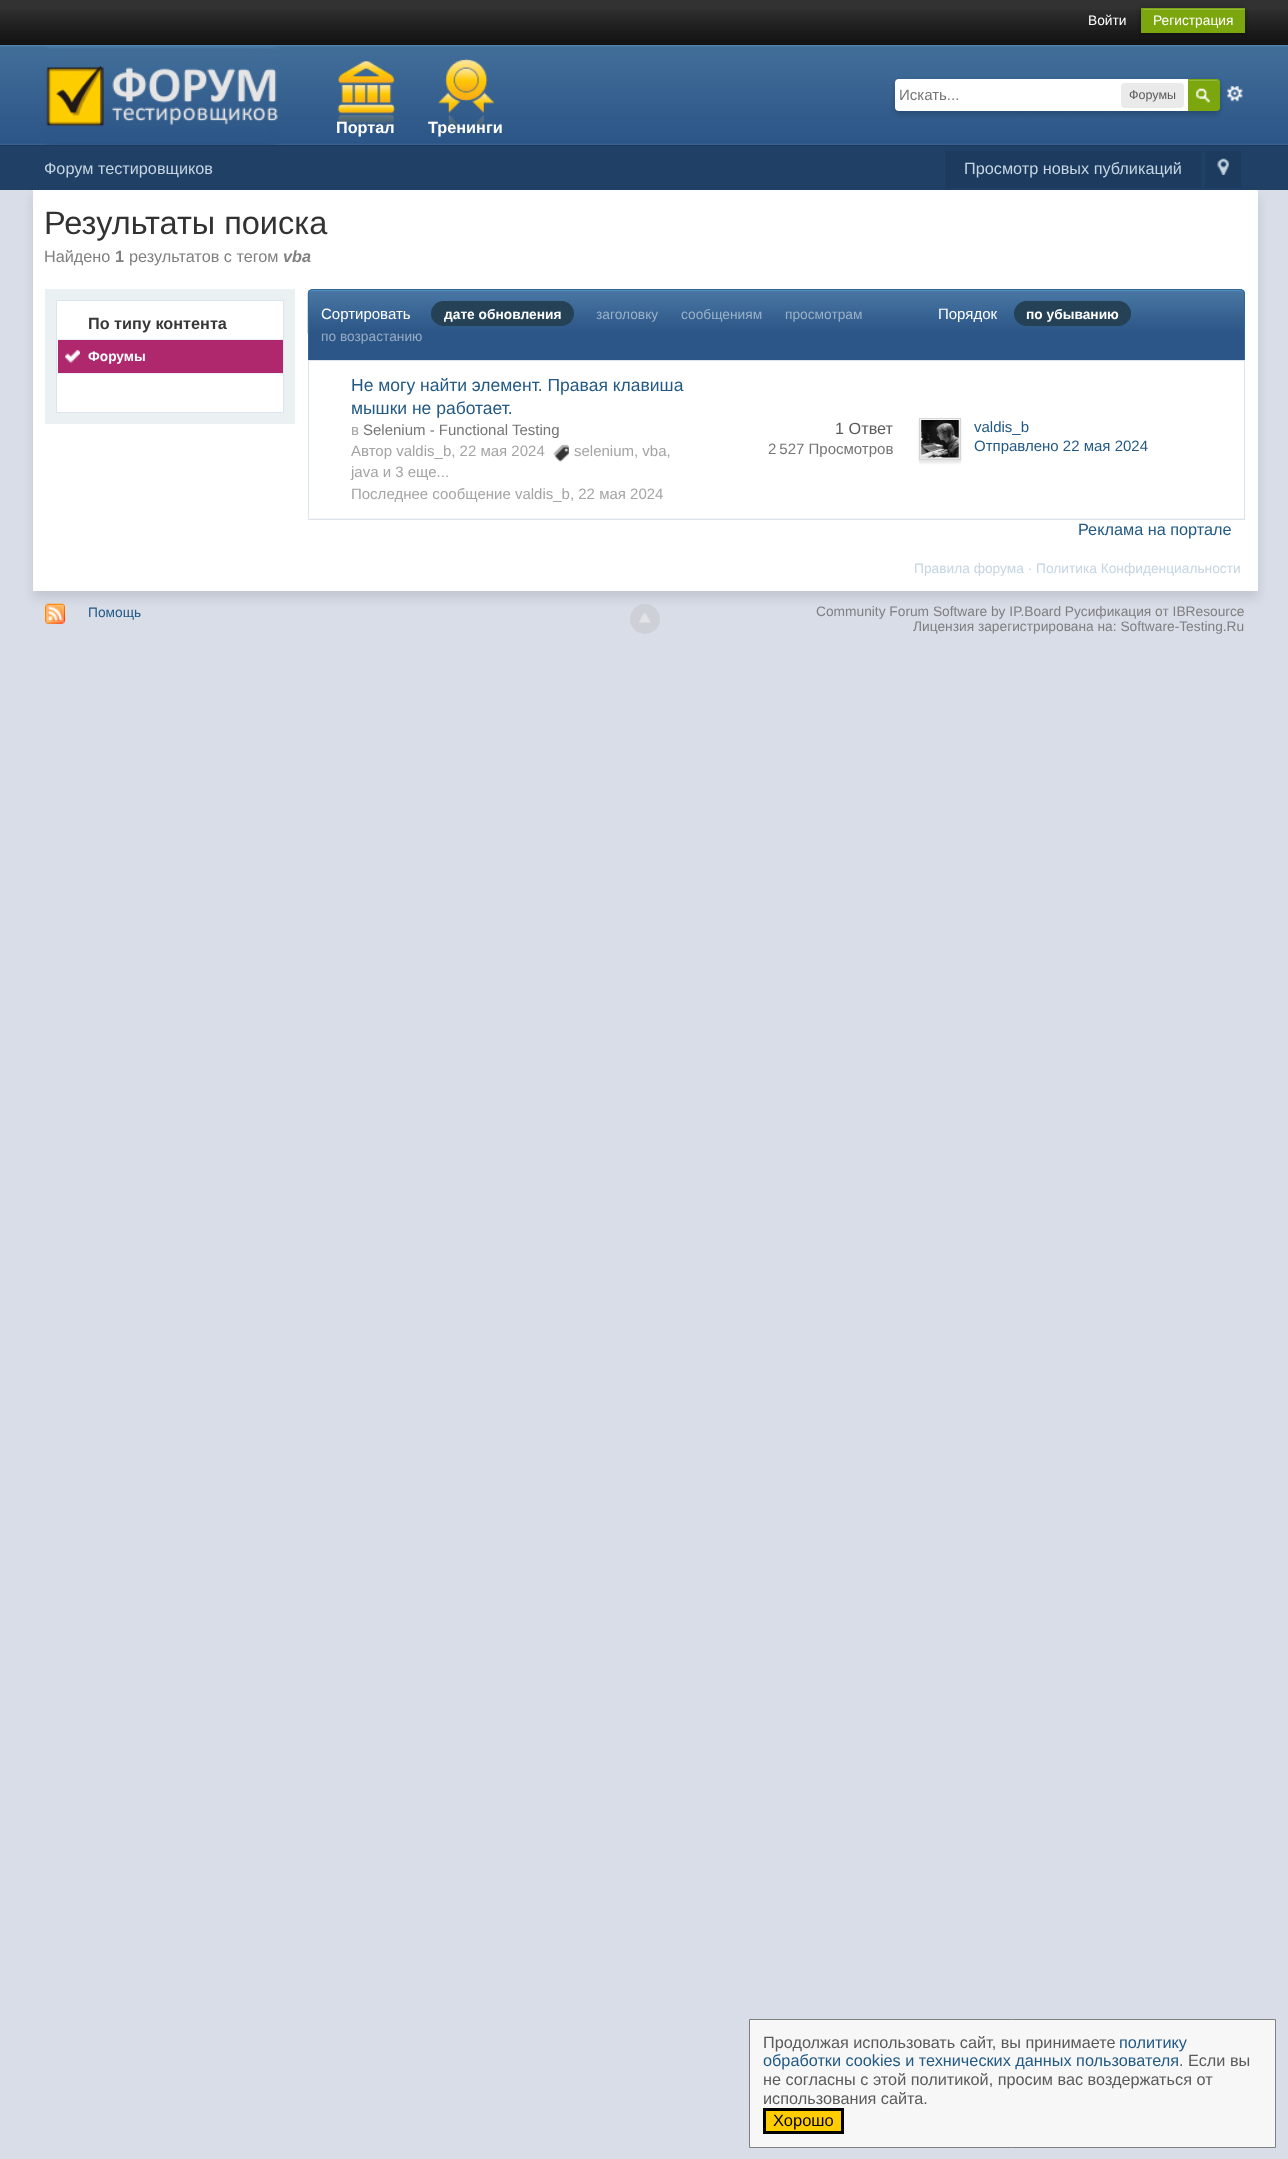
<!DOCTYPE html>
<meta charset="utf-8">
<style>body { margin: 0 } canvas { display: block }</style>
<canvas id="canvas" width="1288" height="2159"></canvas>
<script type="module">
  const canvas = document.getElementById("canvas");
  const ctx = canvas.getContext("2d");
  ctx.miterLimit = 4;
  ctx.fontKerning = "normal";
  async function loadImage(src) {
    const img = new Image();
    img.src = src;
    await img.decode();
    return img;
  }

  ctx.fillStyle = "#d8dde8";
  ctx.fillRect(0, 0, 1288, 2159);
  ctx.fillStyle = "#323232";
  ctx.fillRect(0, 0, 1288, 10);
  ctx.drawImage(await loadImage("img1.png"), 0, 10, 1288, 35);
  ctx.font = "13.75px Liberation Sans";
  ctx.fillStyle = "#ffffff";
  ctx.fillText("Войти", 1088, 25);
  ctx.fillStyle = "rgba(0, 0, 0, 0.4)";
  ctx.filter = "blur(2.5px)";
  ctx.beginPath();
  ctx.rect(1141, 9, 104, 25);
  ctx.fill();
  ctx.filter = "none";
  ctx.fillStyle = "#7ba60d";
  ctx.fillRect(1141, 8, 104, 25);
  ctx.fillStyle = "#95b83d";
  ctx.fillRect(1143, 9, 101, 1);
  ctx.fillStyle = "#ffffff";
  ctx.fillText("Регистрация", 1153, 25);
  ctx.drawImage(await loadImage("img2.png"), 0, 45, 1288, 100);
  ctx.fillStyle = "#1b3759";
  ctx.fillRect(0, 145, 1288, 1);
  ctx.drawImage(await loadImage("img3.png"), 45, 46, 233, 99);
  ctx.drawImage(await loadImage("img5.png"), 1227, 86, 16, 16);
  ctx.fillStyle = "rgba(0, 0, 0, 0.2)";
  ctx.filter = "blur(2.5px)";
  ctx.beginPath();
  ctx.roundRect(895, 81, 325, 33, 5);
  ctx.fill();
  ctx.filter = "none";
  ctx.fillStyle = "#ffffff";
  ctx.beginPath();
  ctx.roundRect(895, 79, 325, 32, [4, 5, 5, 4]);
  ctx.fill();
  ctx.font = "15px Liberation Sans";
  ctx.fillStyle = "#757575";
  ctx.fillText("Искать...", 899, 100);
  ctx.fillStyle = "#eaeaea";
  ctx.beginPath();
  ctx.roundRect(1121, 83, 63, 25, 4);
  ctx.fill();
  ctx.font = "12.5px Liberation Sans";
  ctx.fillStyle = "#5a5a5a";
  ctx.fillText("Форумы", 1129, 99);
  ctx.fillStyle = "#7ba60d";
  ctx.beginPath();
  ctx.roundRect(1188, 79, 32, 32, [0, 4, 4, 0]);
  ctx.fill();
  ctx.drawImage(await loadImage("img4.png"), 1196, 88, 14, 15);
  ctx.fillStyle = "#95b83d";
  ctx.beginPath();
  ctx.moveTo(1189, 81);
  ctx.lineTo(1216, 81);
  ctx.bezierCurveTo(1218, 81, 1219, 82, 1219, 84);
  ctx.lineTo(1219, 82.5);
  ctx.bezierCurveTo(1219, 81, 1218, 80, 1216.5, 80);
  ctx.lineTo(1189, 80);
  ctx.closePath();
  ctx.fill();
  ctx.beginPath();
  ctx.roundRect(1188.5, 79.5, 31, 31, [0, 3.5, 3.5, 0]);
  ctx.strokeStyle = "#7ba60d";
  ctx.stroke();
  ctx.drawImage(await loadImage("img6.png"), 337, 61, 59, 68);
  ctx.font = "bold 16.25px Liberation Sans";
  ctx.fillStyle = "#ffffff";
  ctx.fillText("Портал", 336, 133);
  ctx.drawImage(await loadImage("img7.png"), 438, 58, 56, 71);
  ctx.fillText("Тренинги", 428, 133);
  ctx.fillStyle = "#204066";
  ctx.fillRect(0, 146, 1288, 44);
  ctx.font = "16.25px Liberation Sans";
  ctx.fillStyle = "#c5d5e2";
  ctx.fillText("Форум тестировщиков", 44, 174);
  ctx.fillStyle = "rgba(0, 0, 0, 0.1)";
  ctx.filter = "blur(5.5px)";
  ctx.beginPath();
  ctx.rect(33, 196, 1225, 402);
  ctx.fill();
  ctx.filter = "none";
  ctx.fillStyle = "#1c3b5f";
  ctx.fillRect(945, 151, 256, 37);
  ctx.fillStyle = "#c5d5e2";
  ctx.fillText("Просмотр новых публикаций", 964, 174);
  ctx.fillStyle = "#1c3b5f";
  ctx.fillRect(1205, 151, 36, 37);
  ctx.drawImage(await loadImage("img8.png"), 1217, 158, 12, 17);
  ctx.fillStyle = "#ffffff";
  ctx.fillRect(33, 190, 1225, 401);
  ctx.font = "32.5px Liberation Sans";
  ctx.fillStyle = "#323232";
  ctx.fillText("Результаты поиска", 44, 234);
  ctx.font = "16.25px Liberation Sans";
  ctx.fillStyle = "#7f7f7f";
  ctx.fillText("Найдено", 44, 262);
  ctx.font = "bold 16.25px Liberation Sans";
  ctx.fillText("1", 115, 262);
  ctx.font = "16.25px Liberation Sans";
  ctx.fillText("результатов с тегом", 129, 262);
  ctx.font = "italic bold 16.25px Liberation Sans";
  ctx.fillText("vba", 283, 262);
  ctx.fillStyle = "#ebf0f3";
  ctx.fillRect(45, 289, 250, 135);
  ctx.fillStyle = "#ffffff";
  ctx.beginPath();
  ctx.rect(56.5, 300.5, 227, 112);
  ctx.fill();
  ctx.strokeStyle = "#dbe4ef";
  ctx.stroke();
  ctx.font = "bold 16.25px Liberation Sans";
  ctx.fillStyle = "#383838";
  ctx.fillText("По типу контента", 88, 329);
  ctx.fillStyle = "#edf1f5";
  ctx.fillRect(58, 339, 225, 1);
  ctx.fillRect(58, 373, 225, 1);
  ctx.fillStyle = "#af286d";
  ctx.fillRect(58, 340, 225, 33);
  ctx.drawImage(await loadImage("img9.png"), 65, 350, 15, 13);
  ctx.font = "bold 13.75px Liberation Sans";
  ctx.fillStyle = "#ffffff";
  ctx.fillText("Форумы", 88, 361);
  ctx.fillStyle = "#2c5687";
  ctx.beginPath();
  ctx.roundRect(309, 290, 935, 70, [4, 4, 0, 0]);
  ctx.fill();
  ctx.drawImage(await loadImage("img10.png"), 307, 290, 938, 44);
  ctx.fillStyle = "#528cbc";
  ctx.beginPath();
  ctx.moveTo(312, 291);
  ctx.lineTo(1240, 291);
  ctx.bezierCurveTo(1242, 291, 1244, 293, 1244, 295);
  ctx.bezierCurveTo(1244, 292, 1243, 290, 1240, 290);
  ctx.lineTo(313, 290);
  ctx.bezierCurveTo(310, 290, 309, 292, 309, 295);
  ctx.bezierCurveTo(309, 293, 310, 291, 312, 291);
  ctx.closePath();
  ctx.fill();
  ctx.fillStyle = "#316897";
  ctx.beginPath();
  ctx.moveTo(312, 289);
  ctx.lineTo(1240, 289);
  ctx.bezierCurveTo(1243, 289, 1245, 291, 1245, 294);
  ctx.lineTo(1245, 360);
  ctx.lineTo(308, 360);
  ctx.lineTo(308, 294);
  ctx.bezierCurveTo(308, 291, 310, 289, 312, 289);
  ctx.closePath();
  ctx.moveTo(312, 290);
  ctx.lineTo(1240, 290);
  ctx.bezierCurveTo(1242, 290, 1244, 292, 1244, 294);
  ctx.lineTo(1244, 360);
  ctx.lineTo(309, 360);
  ctx.lineTo(309, 294);
  ctx.bezierCurveTo(309, 292, 310, 290, 312, 290);
  ctx.closePath();
  ctx.fill("evenodd");
  ctx.font = "15px Liberation Sans";
  ctx.fillStyle = "#ffffff";
  ctx.fillText("Сортировать", 321, 319);
  ctx.fillStyle = "#244156";
  ctx.beginPath();
  ctx.roundRect(1014, 301, 117, 25, 12.5);
  ctx.fill();
  ctx.font = "bold 13.75px Liberation Sans";
  ctx.fillStyle = "#ffffff";
  ctx.fillText("по убыванию", 1026, 319);
  ctx.font = "13.75px Liberation Sans";
  ctx.fillStyle = "#96abc3";
  ctx.fillText("по возрастанию", 321, 341);
  ctx.fillStyle = "#244156";
  ctx.beginPath();
  ctx.roundRect(431, 301, 143, 25, 12.5);
  ctx.fill();
  ctx.font = "bold 13.75px Liberation Sans";
  ctx.fillStyle = "#ffffff";
  ctx.fillText("дате обновления", 444, 319);
  ctx.font = "13.75px Liberation Sans";
  ctx.fillStyle = "#9bb1c9";
  ctx.fillText("заголовку", 596, 319);
  ctx.fillText("сообщениям", 681, 319);
  ctx.fillText("просмотрам", 785, 319);
  ctx.font = "15px Liberation Sans";
  ctx.fillStyle = "#ffffff";
  ctx.fillText("Порядок", 938, 319);
  ctx.strokeRect(308.5, 360.5, 936, 159);
  ctx.font = "17.5px Liberation Sans";
  ctx.fillStyle = "#225985";
  ctx.fillText("Не могу найти элемент. Правая клавиша", 351, 391);
  ctx.fillText("мышки не работает.", 351, 414);
  ctx.font = "15px Liberation Sans";
  ctx.fillStyle = "#a4a4a4";
  ctx.fillText("в", 351, 435);
  ctx.fillStyle = "#757575";
  ctx.fillText("Selenium - Functional Testing", 363, 435);
  ctx.fillStyle = "#a4a4a4";
  ctx.fillText("Автор valdis_b, 22 мая 2024", 351, 456);
  ctx.drawImage(await loadImage("img11.png"), 553, 444, 16, 18);
  ctx.fillText("selenium, vba,", 574, 456);
  ctx.fillText("java и 3 еще...", 351, 477);
  ctx.fillText("Последнее сообщение valdis_b, 22 мая 2024", 351, 499);
  ctx.font = "16.25px Liberation Sans";
  ctx.fillStyle = "#5a5a5a";
  ctx.fillText("1 Ответ", 835, 434);
  ctx.font = "15px Liberation Sans";
  ctx.fillStyle = "#757575";
  ctx.fillText("2 527 Просмотров", 768, 454);
  ctx.fillStyle = "#f3f3f3";
  ctx.fillRect(308, 518, 936, 1);
  ctx.fillStyle = "rgba(0, 0, 0, 0.1)";
  ctx.filter = "blur(1px)";
  ctx.beginPath();
  ctx.rect(919, 420, 42, 43);
  ctx.fill();
  ctx.filter = "none";
  ctx.strokeStyle = "#d5d5d5";
  ctx.strokeRect(919.5, 418.5, 41, 41);
  ctx.drawImage(await loadImage("img12.png"), 921, 420, 38, 38);
  ctx.fillStyle = "#225985";
  ctx.fillText("valdis_b", 974, 432);
  ctx.fillText("Отправлено 22 мая 2024", 974, 451);
  ctx.font = "16.25px Liberation Sans";
  ctx.fillText("Реклама на портале", 1078, 535);
  ctx.font = "13.75px Liberation Sans";
  ctx.fillStyle = "#c5d5e2";
  ctx.fillText("Правила форума ·", 914, 573);
  ctx.fillText("Политика Конфиденциальности", 1036, 573);
  ctx.drawImage(await loadImage("img13.png"), 45, 603, 20, 21);
  ctx.fillStyle = "#225985";
  ctx.fillText("Помощь", 88, 617);
  ctx.fillStyle = "rgba(189, 189, 189, 0.4)";
  ctx.beginPath();
  ctx.arc(645, 619, 15, 0, Math.PI * 2);
  ctx.fill();
  ctx.drawImage(await loadImage("img14.png"), 639, 612, 12, 11);
  ctx.fillStyle = "#7f7f7f";
  ctx.fillText("Community Forum Software by IP.Board Русификация от IBResource", 816, 616);
  ctx.fillText("Лицензия зарегистрирована на: Software-Testing.Ru", 913, 631);
  ctx.fillStyle = "#f7f7f7";
  ctx.beginPath();
  ctx.rect(749.5, 2019.5, 526, 128);
  ctx.fill();
  ctx.strokeStyle = "#808080";
  ctx.stroke();
  ctx.font = "16.25px Liberation Sans";
  ctx.fillStyle = "#5a5a5a";
  ctx.fillText("Продолжая использовать сайт, вы принимаете", 763, 2048);
  ctx.fillStyle = "#225985";
  ctx.fillText("политику", 1119, 2048);
  ctx.fillText("обработки cookies и технических данных пользователя", 763, 2066);
  ctx.fillStyle = "#5a5a5a";
  ctx.fillText(". Если вы", 1179, 2066);
  ctx.fillText("не согласны с этой политикой, просим вас воздержаться от", 763, 2085);
  ctx.fillText("использования сайта.", 763, 2104);
  ctx.fillStyle = "#ffcc00";
  ctx.beginPath();
  ctx.rect(764.5, 2109.5, 78, 23);
  ctx.fill();
  ctx.strokeStyle = "#000000";
  ctx.lineWidth = 3;
  ctx.stroke();
  ctx.font = "16.5px Liberation Sans";
  ctx.fillStyle = "#000000";
  ctx.fillText("Хорошо", 773, 2126);
</script>
